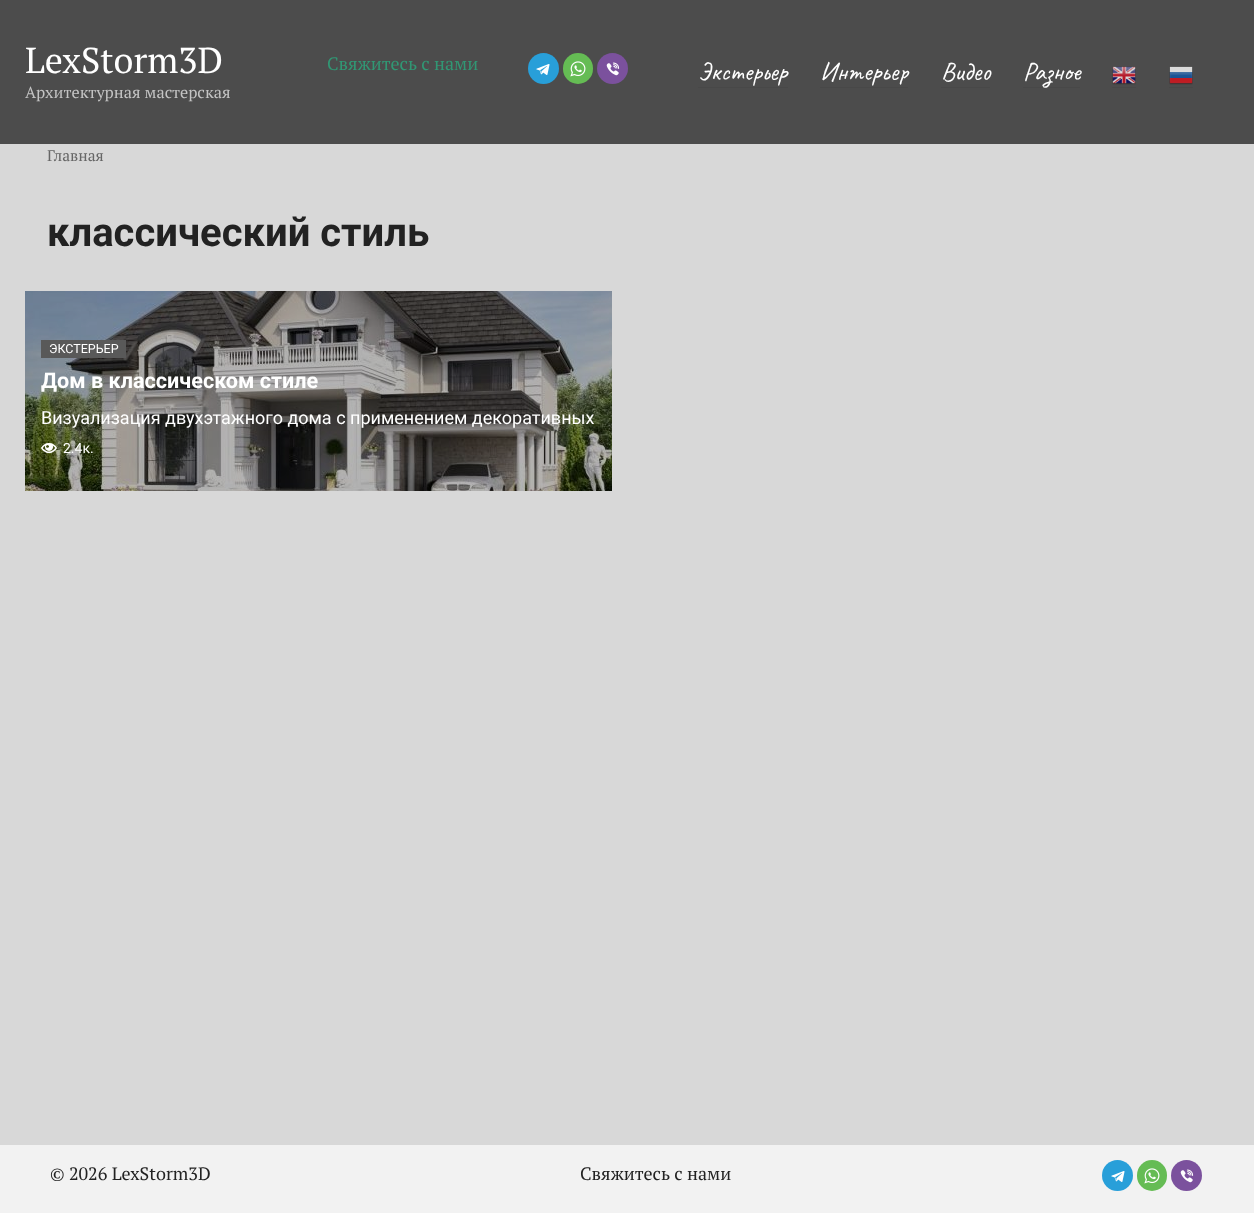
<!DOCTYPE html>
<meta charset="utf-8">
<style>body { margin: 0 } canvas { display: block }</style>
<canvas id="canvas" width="1254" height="1213"></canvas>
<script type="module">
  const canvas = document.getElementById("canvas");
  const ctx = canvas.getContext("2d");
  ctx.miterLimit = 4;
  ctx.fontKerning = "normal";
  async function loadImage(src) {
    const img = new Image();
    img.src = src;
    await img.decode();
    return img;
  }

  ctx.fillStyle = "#d8d8d8";
  ctx.fillRect(0, 0, 1254, 1213);
  ctx.fillStyle = "#4c4c4c";
  ctx.fillRect(0, 0, 1254, 144);
  ctx.font = "36px PT Serif";
  ctx.fillStyle = "#ffffff";
  ctx.fillText("LexStorm3D", 25, 73);
  ctx.font = "16.25px PT Serif";
  ctx.fillStyle = "#c4c4c4";
  ctx.fillText("Архитектурная мастерская", 25, 98);
  ctx.font = "18px PT Serif";
  ctx.fillStyle = "#319774";
  ctx.fillText("Свяжитесь с нами", 327, 70);
  ctx.fillStyle = "#289fd9";
  ctx.beginPath();
  ctx.arc(543.5, 68.5, 15.5, 0, Math.PI * 2);
  ctx.fill();
  ctx.drawImage(await loadImage("img1.png"), 536, 64, 14, 11);
  ctx.fillStyle = "#65bc54";
  ctx.beginPath();
  ctx.roundRect(563, 53, 30, 31, 15);
  ctx.fill();
  ctx.drawImage(await loadImage("img2.png"), 570, 61, 16, 16);
  ctx.fillStyle = "#7b519d";
  ctx.beginPath();
  ctx.arc(612.5, 68.5, 15.5, 0, Math.PI * 2);
  ctx.fill();
  ctx.drawImage(await loadImage("img3.png"), 606, 62, 14, 14);
  ctx.font = "26px Caveat";
  ctx.fillStyle = "#ffffff";
  ctx.fillText("Экстерьер", 698, 80);
  ctx.fillStyle = "#484848";
  ctx.fillRect(698, 87, 90, 1);
  ctx.fillStyle = "#ffffff";
  ctx.fillText("Интерьер", 820, 80);
  ctx.fillStyle = "#484848";
  ctx.fillRect(820, 87, 88, 1);
  ctx.fillStyle = "#ffffff";
  ctx.fillText("Видео", 941, 80);
  ctx.fillStyle = "#484848";
  ctx.fillRect(941, 87, 49, 1);
  ctx.fillRect(1023, 87, 57, 1);
  ctx.fillStyle = "#ffffff";
  ctx.fillText("Разное", 1023, 80);
  ctx.drawImage(await loadImage("img4.png"), 1112, 66, 24, 19);
  ctx.fillStyle = "#484848";
  ctx.fillRect(1112, 87, 24, 1);
  ctx.drawImage(await loadImage("img5.png"), 1169, 66, 24, 19);
  ctx.fillRect(1169, 87, 24, 1);
  ctx.font = "15.5px PT Serif";
  ctx.fillStyle = "#666666";
  ctx.fillText("Главная", 47, 161);
  ctx.font = "bold 40px Roboto";
  ctx.fillStyle = "#222222";
  ctx.fillText("классический стиль", 47, 246);
  ctx.drawImage(await loadImage("img6.png"), 25, 291, 587, 200);
  ctx.fillStyle = "#595959";
  ctx.fillRect(41, 340, 85, 18);
  ctx.font = "12.5px Roboto";
  ctx.fillStyle = "#ffffff";
  ctx.fillText("ЭКСТЕРЬЕР", 49, 353);
  ctx.font = "bold 21.6px Roboto";
  ctx.fillText("Дом в классическом стиле", 41, 388);
  ctx.font = "18px Roboto";
  ctx.fillText("Визуализация двухэтажного дома с применением декоративных", 41, 424);
  ctx.font = "16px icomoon";
  ctx.fillText("👁", 41, 455);
  ctx.font = "14px Roboto";
  ctx.fillText("2.4к.", 63, 453);
  ctx.fillStyle = "#f2f2f2";
  ctx.fillRect(0, 1145, 1254, 68);
  ctx.font = "18px PT Serif";
  ctx.fillStyle = "#222222";
  ctx.fillText("© 2026 LexStorm3D", 50, 1180);
  ctx.fillText("Свяжитесь с нами", 580, 1180);
  ctx.fillStyle = "#289fd9";
  ctx.beginPath();
  ctx.arc(1117.5, 1175.5, 15.5, 0, Math.PI * 2);
  ctx.fill();
  ctx.drawImage(await loadImage("img1.png"), 1111, 1171, 14, 11);
  ctx.fillStyle = "#65bc54";
  ctx.beginPath();
  ctx.roundRect(1137, 1160, 30, 31, 15);
  ctx.fill();
  ctx.drawImage(await loadImage("img2.png"), 1144, 1168, 16, 16);
  ctx.fillStyle = "#7b519d";
  ctx.beginPath();
  ctx.arc(1186.5, 1175.5, 15.5, 0, Math.PI * 2);
  ctx.fill();
  ctx.drawImage(await loadImage("img3.png"), 1180, 1169, 14, 14);
</script>
